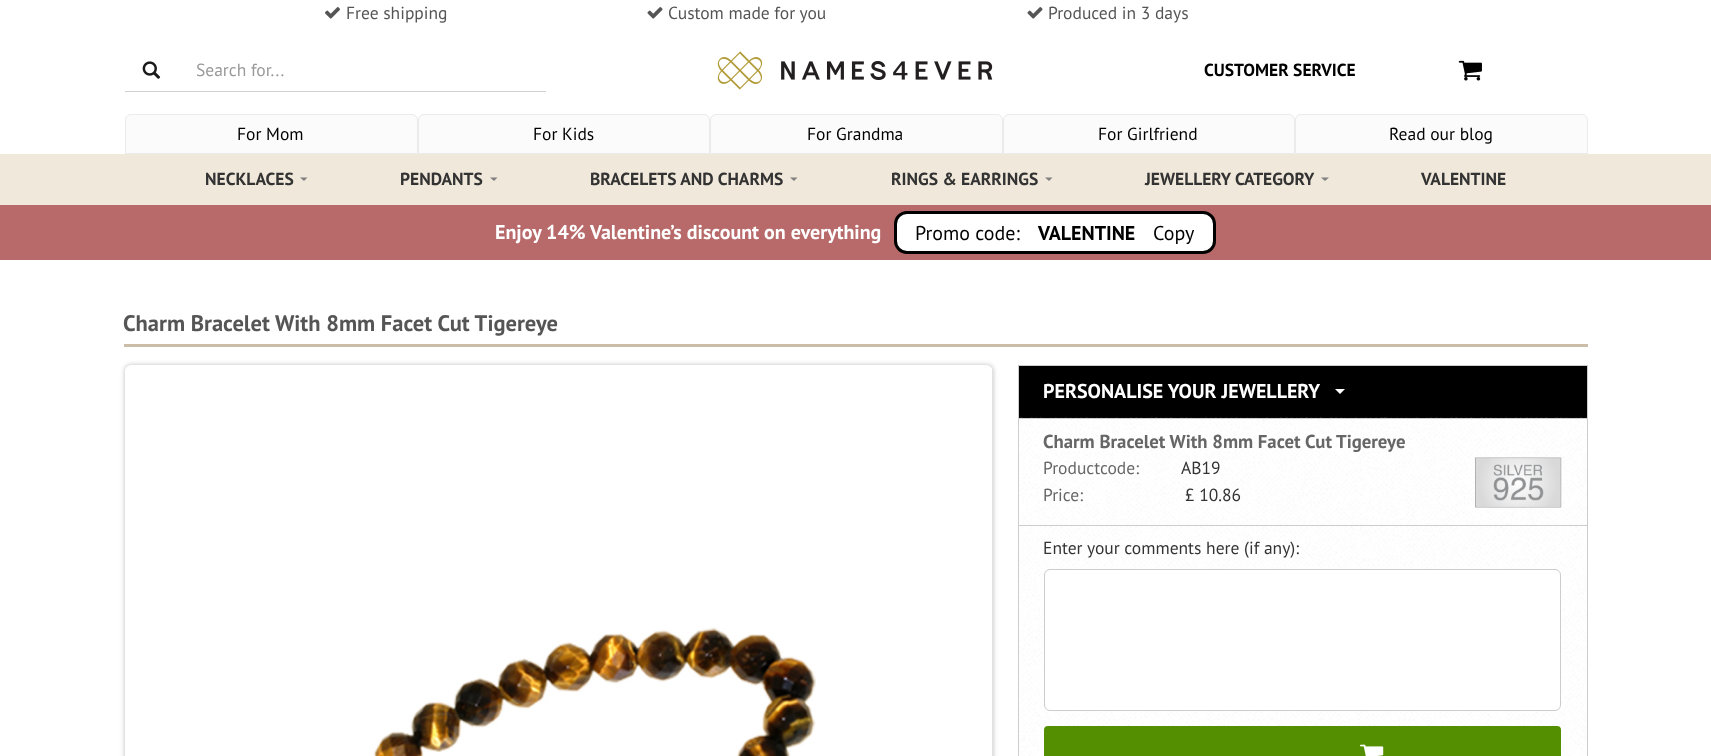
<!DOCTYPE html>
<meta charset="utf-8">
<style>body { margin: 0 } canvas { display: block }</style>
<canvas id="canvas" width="1711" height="756"></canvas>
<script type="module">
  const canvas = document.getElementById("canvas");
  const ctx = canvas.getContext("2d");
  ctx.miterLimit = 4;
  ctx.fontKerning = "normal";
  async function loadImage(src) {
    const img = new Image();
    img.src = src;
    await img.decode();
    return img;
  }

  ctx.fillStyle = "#ffffff";
  ctx.fillRect(0, 0, 1711, 756);
  ctx.drawImage(await loadImage("img1.png"), 325, 7, 15, 12);
  ctx.font = "17.5px PT Sans";
  ctx.fillStyle = "#555555";
  ctx.fillText("Free shipping", 346, 19);
  ctx.drawImage(await loadImage("img2.png"), 647, 7, 16, 12);
  ctx.fillText("Custom made for you", 668, 19);
  ctx.drawImage(await loadImage("img2.png"), 1027, 7, 16, 12);
  ctx.fillText("Produced in 3 days", 1048, 19);
  ctx.fillStyle = "#d1cfcf";
  ctx.fillRect(125, 91, 421, 1);
  ctx.drawImage(await loadImage("img3.png"), 142, 61, 19, 18);
  ctx.fillStyle = "#999999";
  ctx.fillText("Search for...", 196, 76);
  ctx.drawImage(await loadImage("img4.png"), 717, 51, 276, 39);
  ctx.font = "bold 17.5px PT Sans";
  ctx.fillStyle = "#000000";
  ctx.fillText("CUSTOMER SERVICE", 1204, 76);
  ctx.drawImage(await loadImage("img5.png"), 1458, 60, 24, 21);
  ctx.fillStyle = "#fbfbfb";
  ctx.beginPath();
  ctx.roundRect(125.5, 114.5, 292, 39, [5.5, 5.5, 0, 0]);
  ctx.fill();
  ctx.strokeStyle = "#ebebeb";
  ctx.stroke();
  ctx.font = "17.5px PT Sans";
  ctx.fillStyle = "#000000";
  ctx.fillText("For Mom", 237, 140);
  ctx.fillStyle = "#fbfbfb";
  ctx.beginPath();
  ctx.roundRect(418.5, 114.5, 291, 39, [5.5, 5.5, 0, 0]);
  ctx.fill();
  ctx.stroke();
  ctx.fillStyle = "#000000";
  ctx.fillText("For Kids", 533, 140);
  ctx.fillStyle = "#fbfbfb";
  ctx.beginPath();
  ctx.roundRect(710.5, 114.5, 292, 39, [5.5, 5.5, 0, 0]);
  ctx.fill();
  ctx.stroke();
  ctx.fillStyle = "#000000";
  ctx.fillText("For Grandma", 807, 140);
  ctx.fillStyle = "#fbfbfb";
  ctx.beginPath();
  ctx.roundRect(1003.5, 114.5, 291, 39, [5.5, 5.5, 0, 0]);
  ctx.fill();
  ctx.stroke();
  ctx.fillStyle = "#000000";
  ctx.fillText("For Girlfriend", 1098, 140);
  ctx.fillStyle = "#fbfbfb";
  ctx.beginPath();
  ctx.roundRect(1295.5, 114.5, 292, 39, [5.5, 5.5, 0, 0]);
  ctx.fill();
  ctx.stroke();
  ctx.fillStyle = "#000000";
  ctx.fillText("Read our blog", 1389, 140);
  ctx.fillStyle = "#f0e8da";
  ctx.fillRect(0, 154, 1711, 51);
  ctx.font = "bold 17.5px PT Sans";
  ctx.fillStyle = "#333333";
  ctx.fillText("NECKLACES", 205, 185);
  ctx.fillStyle = "#808080";
  ctx.beginPath();
  ctx.moveTo(300, 177.5);
  ctx.lineTo(307.5, 177.5);
  ctx.lineTo(304, 181);
  ctx.closePath();
  ctx.fill();
  ctx.fillStyle = "#333333";
  ctx.fillText("PENDANTS", 400, 185);
  ctx.fillStyle = "#808080";
  ctx.beginPath();
  ctx.moveTo(490, 177.5);
  ctx.lineTo(497.5, 177.5);
  ctx.lineTo(494, 181);
  ctx.closePath();
  ctx.fill();
  ctx.fillStyle = "#333333";
  ctx.fillText("BRACELETS AND CHARMS", 590, 185);
  ctx.fillStyle = "#808080";
  ctx.beginPath();
  ctx.moveTo(790, 177.5);
  ctx.lineTo(797.5, 177.5);
  ctx.lineTo(794, 181);
  ctx.closePath();
  ctx.fill();
  ctx.fillStyle = "#333333";
  ctx.fillText("RINGS & EARRINGS", 891, 185);
  ctx.fillStyle = "#808080";
  ctx.beginPath();
  ctx.moveTo(1045, 177.5);
  ctx.lineTo(1052.5, 177.5);
  ctx.lineTo(1049, 181);
  ctx.closePath();
  ctx.fill();
  ctx.fillStyle = "#333333";
  ctx.fillText("JEWELLERY CATEGORY", 1145, 185);
  ctx.fillStyle = "#808080";
  ctx.beginPath();
  ctx.moveTo(1321, 177.5);
  ctx.lineTo(1329, 177.5);
  ctx.lineTo(1325, 181);
  ctx.closePath();
  ctx.fill();
  ctx.fillStyle = "#333333";
  ctx.fillText("VALENTINE", 1421, 185);
  ctx.fillStyle = "#b86a6a";
  ctx.fillRect(0, 205, 1711, 55);
  ctx.font = "bold 20px PT Sans";
  ctx.fillStyle = "#ffffff";
  ctx.fillText("Enjoy 14% Valentine’s discount on everything", 495, 239);
  ctx.beginPath();
  ctx.roundRect(895.5, 212.5, 319, 40, 11.5);
  ctx.fill();
  ctx.strokeStyle = "#000000";
  ctx.lineWidth = 3;
  ctx.stroke();
  ctx.font = "20px PT Sans";
  ctx.fillStyle = "#000000";
  ctx.fillText("Promo code:", 915, 240);
  ctx.font = "bold 20px PT Sans";
  ctx.fillText("VALENTINE", 1038, 240);
  ctx.font = "20px PT Sans";
  ctx.fillText("Copy", 1153, 240);
  ctx.fillStyle = "#ccbda8";
  ctx.fillRect(124, 344, 1464, 3);
  ctx.font = "bold 22.5px PT Sans";
  ctx.fillStyle = "#555555";
  ctx.fillText("Charm Bracelet With 8mm Facet Cut Tigereye", 123, 331);
  ctx.fillStyle = "rgba(122, 122, 122, 0.5)";
  ctx.filter = "blur(2.5px)";
  ctx.beginPath();
  ctx.roundRect(125, 365, 868, 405, 6);
  ctx.fill();
  ctx.filter = "none";
  ctx.drawImage(await loadImage("img6.png"), 125, 365, 868, 391);
  ctx.fillStyle = "#000000";
  ctx.beginPath();
  ctx.rect(1018.5, 365.5, 569, 53);
  ctx.fill();
  ctx.strokeStyle = "#cccccc";
  ctx.lineWidth = 1;
  ctx.stroke();
  ctx.font = "bold 20px PT Sans";
  ctx.fillStyle = "#ffffff";
  ctx.fillText("PERSONALISE YOUR JEWELLERY", 1043, 398);
  ctx.beginPath();
  ctx.moveTo(1335, 389);
  ctx.lineTo(1345, 389);
  ctx.lineTo(1340, 394);
  ctx.closePath();
  ctx.fill();
  ctx.drawImage(await loadImage("img7.png"), 1020, 417, 567, 108);
  ctx.strokeStyle = "#cecccd";
  ctx.strokeRect(1018.5, 418.5, 569, 107);
  ctx.font = "bold 18.75px PT Sans";
  ctx.fillStyle = "#666666";
  ctx.fillText("Charm Bracelet With 8mm Facet Cut Tigereye", 1043, 448);
  ctx.font = "17.5px PT Sans";
  ctx.fillText("Productcode:", 1043, 474);
  ctx.fillStyle = "#333333";
  ctx.fillText("AB19", 1181, 474);
  ctx.drawImage(await loadImage("img8.png"), 1475, 457, 87, 51);
  ctx.fillStyle = "#666666";
  ctx.fillText("Price:", 1043, 501);
  ctx.fillStyle = "#333333";
  ctx.fillText("£ 10.86", 1185, 501);
  ctx.drawImage(await loadImage("img9.png"), 1019, 526, 568, 230);
  ctx.strokeRect(1018.5, 525.5, 569, 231);
  ctx.fillText("Enter your comments here (if any):", 1043, 554);
  ctx.fillStyle = "#ffffff";
  ctx.beginPath();
  ctx.roundRect(1044.5, 569.5, 516, 141, 5.5);
  ctx.fill();
  ctx.strokeStyle = "#cccccc";
  ctx.stroke();
  ctx.fillStyle = "#538f00";
  ctx.beginPath();
  ctx.roundRect(1045.5, 727.5, 514, 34, 2.5);
  ctx.fill();
  ctx.strokeStyle = "#538f00";
  ctx.lineWidth = 3;
  ctx.stroke();
  ctx.drawImage(await loadImage("img10.png"), 1360, 744, 24, 12);
</script>
